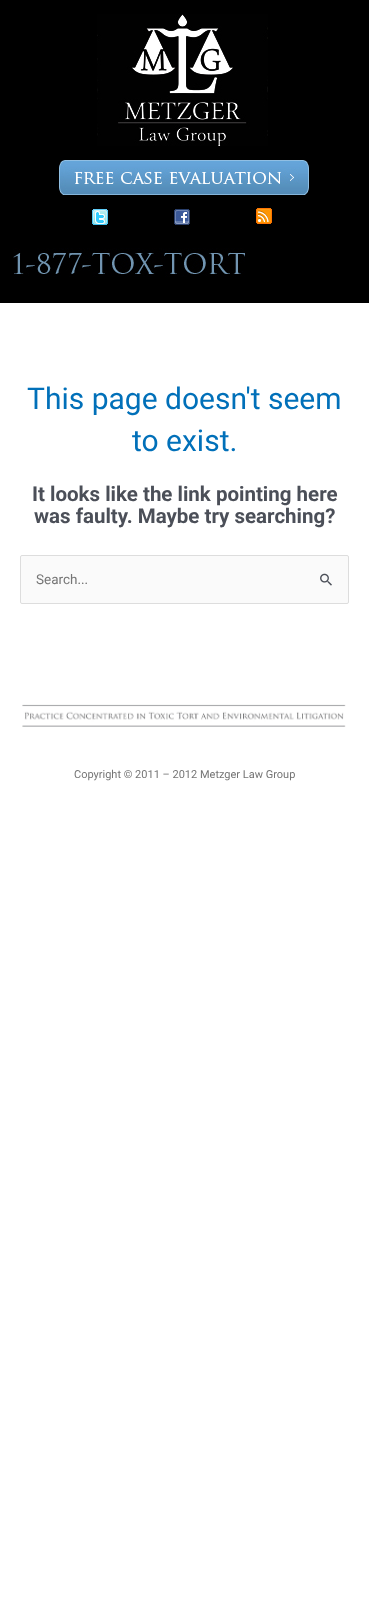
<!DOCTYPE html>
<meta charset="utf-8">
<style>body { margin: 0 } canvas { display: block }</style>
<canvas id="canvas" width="369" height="1621"></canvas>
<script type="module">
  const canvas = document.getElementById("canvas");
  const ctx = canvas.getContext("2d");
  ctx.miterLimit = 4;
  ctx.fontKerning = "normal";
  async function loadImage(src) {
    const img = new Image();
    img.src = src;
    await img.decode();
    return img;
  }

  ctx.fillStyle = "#ffffff";
  ctx.fillRect(0, 0, 369, 1621);
  ctx.fillStyle = "#000000";
  ctx.fillRect(0, 0, 369, 303);
  ctx.drawImage(await loadImage("img1.png"), 97, 14, 171, 132);
  ctx.drawImage(await loadImage("img2.png"), 59, 160, 250, 35);
  ctx.drawImage(await loadImage("img3.png"), 92, 209, 16, 16);
  ctx.drawImage(await loadImage("img4.png"), 174, 209, 16, 16);
  ctx.drawImage(await loadImage("img5.png"), 256, 208, 16, 16);
  ctx.drawImage(await loadImage("img6.png"), 13, 248, 232, 29);
  ctx.font = "30px Roboto";
  ctx.fillStyle = "#0170b9";
  ctx.fillText("This page doesn't seem", 27, 409);
  ctx.fillText("to exist.", 132, 451);
  ctx.font = "bold 20.5px Roboto";
  ctx.fillStyle = "#4b4f58";
  ctx.fillText("It looks like the link pointing here", 32, 501);
  ctx.fillText("was faulty. Maybe try searching?", 34, 523);
  ctx.fillStyle = "#fafafa";
  ctx.beginPath();
  ctx.roundRect(20.5, 555.5, 328, 48, 1.5);
  ctx.fill();
  ctx.strokeStyle = "#dddddd";
  ctx.stroke();
  ctx.font = "13.5px Roboto";
  ctx.fillStyle = "#757575";
  ctx.fillText("Search...", 36, 584);
  ctx.drawImage(await loadImage("img7.png"), 320, 573, 12, 13);
  ctx.drawImage(await loadImage("img8.png"), 22, 704, 324, 23);
  ctx.font = "11px Roboto";
  ctx.fillText("Copyright © 2011 – 2012 Metzger Law Group", 74, 778);
</script>
